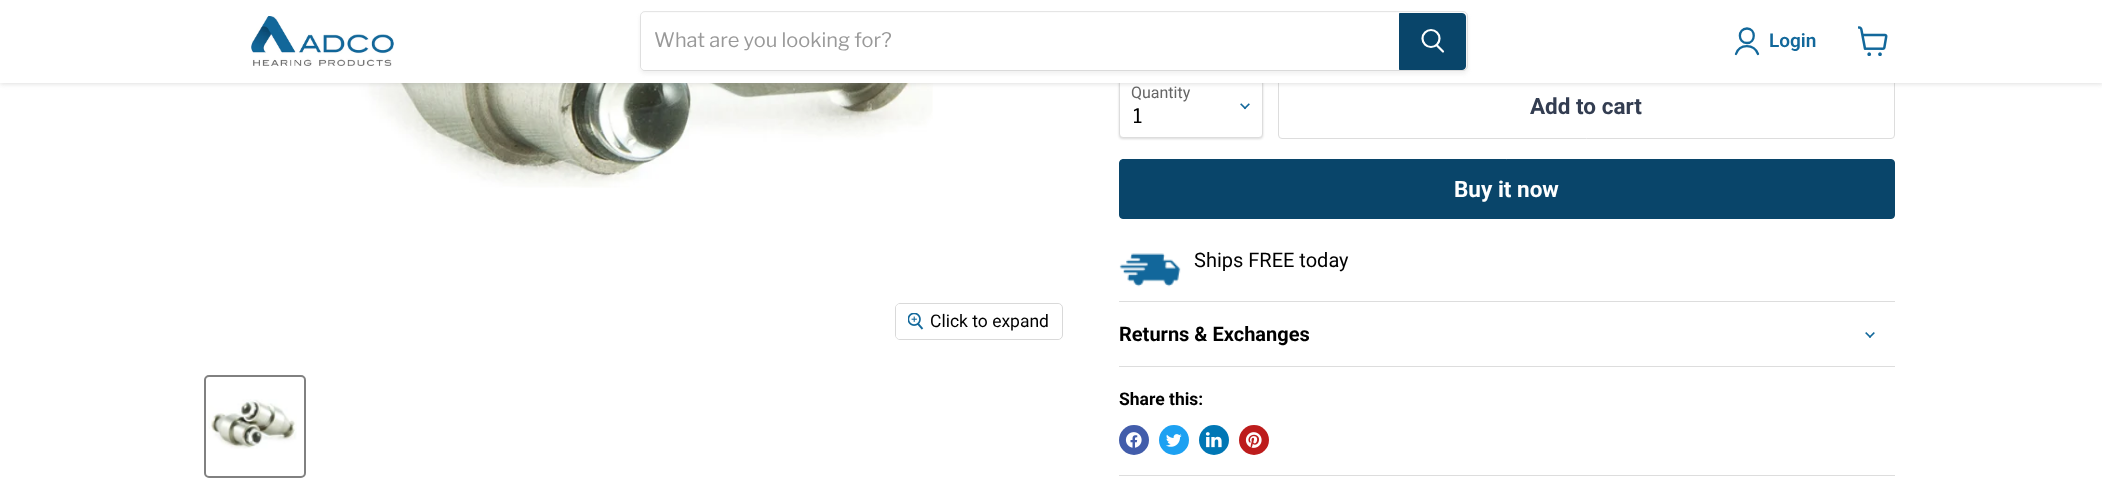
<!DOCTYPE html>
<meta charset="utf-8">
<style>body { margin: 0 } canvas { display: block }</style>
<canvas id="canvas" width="2102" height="493"></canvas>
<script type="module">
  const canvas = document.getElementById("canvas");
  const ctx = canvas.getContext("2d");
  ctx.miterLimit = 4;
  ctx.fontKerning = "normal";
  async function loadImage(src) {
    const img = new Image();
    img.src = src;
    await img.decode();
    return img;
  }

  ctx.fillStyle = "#ffffff";
  ctx.fillRect(0, 0, 2102, 493);
  ctx.drawImage(await loadImage("img3.png"), 344, 83, 589, 105);
  ctx.fillStyle = "rgba(0, 0, 0, 0.15)";
  ctx.filter = "blur(1px)";
  ctx.beginPath();
  ctx.roundRect(1119, 76, 144, 63, 4);
  ctx.fill();
  ctx.filter = "none";
  ctx.fillStyle = "#ffffff";
  ctx.beginPath();
  ctx.roundRect(1119.5, 75.5, 143, 62, 3.5);
  ctx.fill();
  ctx.strokeStyle = "#dddddd";
  ctx.stroke();
  ctx.beginPath();
  ctx.roundRect(1278.5, 75.5, 616, 63, 3.5);
  ctx.stroke();
  ctx.fillStyle = "rgba(128, 128, 128, 0.25)";
  ctx.filter = "blur(2.5px)";
  ctx.beginPath();
  ctx.rect(0, 1, 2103, 83);
  ctx.fill();
  ctx.filter = "none";
  ctx.fillStyle = "#ffffff";
  ctx.fillRect(0, 0, 2102, 83);
  ctx.drawImage(await loadImage("img1.png"), 251, 16, 143, 50);
  ctx.fillStyle = "rgba(128, 128, 128, 0.11)";
  ctx.filter = "blur(2px)";
  ctx.beginPath();
  ctx.roundRect(640, 14, 828, 60, 5);
  ctx.fill();
  ctx.filter = "none";
  ctx.beginPath();
  ctx.roundRect(640.5, 11.5, 827, 59, 4.5);
  ctx.strokeStyle = "rgba(128, 128, 128, 0.2)";
  ctx.stroke();
  ctx.fillStyle = "#ffffff";
  ctx.beginPath();
  ctx.roundRect(641, 13, 758, 57, [4, 0, 0, 4]);
  ctx.fill();
  ctx.font = "20px Libre Franklin";
  ctx.fillStyle = "#999999";
  ctx.fillText("What are you looking for?", 654, 47);
  ctx.fillStyle = "#09456a";
  ctx.beginPath();
  ctx.roundRect(1399.5, 13.5, 66, 56, [0, 3.5, 3.5, 0]);
  ctx.fill();
  ctx.strokeStyle = "#09456a";
  ctx.stroke();
  ctx.beginPath();
  ctx.moveTo(1443, 51.5);
  ctx.lineTo(1437, 45.5);
  ctx.strokeStyle = "#ffffff";
  ctx.lineWidth = 2.2;
  ctx.lineCap = "round";
  ctx.stroke();
  ctx.beginPath();
  ctx.arc(1431, 38.5, 8.5, 0, Math.PI * 2);
  ctx.stroke();
  ctx.beginPath();
  ctx.moveTo(1747, 43);
  ctx.bezierCurveTo(1756, 43, 1756, 28.5, 1747, 28.5);
  ctx.bezierCurveTo(1737.5, 28.5, 1737.5, 43, 1747, 43);
  ctx.closePath();
  ctx.moveTo(1758, 54);
  ctx.bezierCurveTo(1754, 43.5, 1739.5, 43.5, 1736, 54);
  ctx.strokeStyle = "#12689b";
  ctx.lineWidth = 2.3;
  ctx.lineJoin = "round";
  ctx.stroke();
  ctx.font = "600 19px Roboto";
  ctx.fillStyle = "#12689b";
  ctx.fillText("Login", 1769, 47);
  ctx.drawImage(await loadImage("img2.png"), 1858, 26, 30, 30);
  ctx.beginPath();
  ctx.roundRect(895.5, 303.5, 167, 36, 4.5);
  ctx.strokeStyle = "#d9d9d9";
  ctx.lineWidth = 1;
  ctx.lineJoin = "miter";
  ctx.stroke();
  ctx.fillStyle = "rgba(255, 255, 255, 0.9)";
  ctx.beginPath();
  ctx.roundRect(896, 304, 165, 35, 4);
  ctx.fill();
  ctx.drawImage(await loadImage("img4.png"), 908, 313, 16, 17);
  ctx.font = "17.5px Roboto";
  ctx.fillStyle = "#000000";
  ctx.fillText("Click to expand", 930, 327);
  ctx.beginPath();
  ctx.roundRect(205, 376, 100, 101, 4);
  ctx.strokeStyle = "#818181";
  ctx.lineWidth = 2;
  ctx.stroke();
  ctx.drawImage(await loadImage("img5.png"), 208, 399, 89, 50);
  ctx.font = "16px Roboto";
  ctx.fillStyle = "#666666";
  ctx.fillText("Quantity", 1131, 98);
  ctx.drawImage(await loadImage("img6.png"), 1240, 103, 10, 7);
  ctx.font = "20px Libre Franklin";
  ctx.fillStyle = "#000000";
  ctx.fillText("1", 1133, 123);
  ctx.font = "bold 22.5px Roboto";
  ctx.fillStyle = "#333d51";
  ctx.fillText("Add to cart", 1530, 114);
  ctx.fillStyle = "#09456a";
  ctx.beginPath();
  ctx.roundRect(1119.5, 159.5, 775, 59, 3.5);
  ctx.fill();
  ctx.strokeStyle = "#09456a";
  ctx.lineWidth = 1;
  ctx.stroke();
  ctx.fillStyle = "#ffffff";
  ctx.fillText("Buy it now", 1454, 197);
  ctx.drawImage(await loadImage("img7.png"), 1119, 253, 62, 34);
  ctx.font = "20px Roboto";
  ctx.fillStyle = "#000000";
  ctx.fillText("Ships FREE today", 1194, 267);
  ctx.fillStyle = "#dddddd";
  ctx.fillRect(1119, 301, 776, 1);
  ctx.fillRect(1119, 366, 776, 1);
  ctx.font = "bold 20px Roboto";
  ctx.fillStyle = "#000000";
  ctx.fillText("Returns & Exchanges", 1119, 341);
  ctx.drawImage(await loadImage("img8.png"), 1865, 332, 10, 6);
  ctx.font = "bold 17.5px Roboto";
  ctx.fillText("Share this:", 1119, 405);
  ctx.fillStyle = "#425dab";
  ctx.beginPath();
  ctx.arc(1134, 440, 15, 0, Math.PI * 2);
  ctx.fill();
  ctx.drawImage(await loadImage("img9.png"), 1125, 432, 17, 16);
  ctx.fillStyle = "#1da1f2";
  ctx.beginPath();
  ctx.arc(1174, 440, 15, 0, Math.PI * 2);
  ctx.fill();
  ctx.drawImage(await loadImage("img10.png"), 1166, 434, 16, 13);
  ctx.fillStyle = "#0077b5";
  ctx.beginPath();
  ctx.arc(1214, 440, 15, 0, Math.PI * 2);
  ctx.fill();
  ctx.drawImage(await loadImage("img11.png"), 1205, 432, 17, 16);
  ctx.fillStyle = "#bd1c1c";
  ctx.beginPath();
  ctx.arc(1254, 440, 15, 0, Math.PI * 2);
  ctx.fill();
  ctx.drawImage(await loadImage("img12.png"), 1245, 432, 17, 16);
  ctx.fillStyle = "#dddddd";
  ctx.fillRect(1119, 475, 776, 1);
</script>
